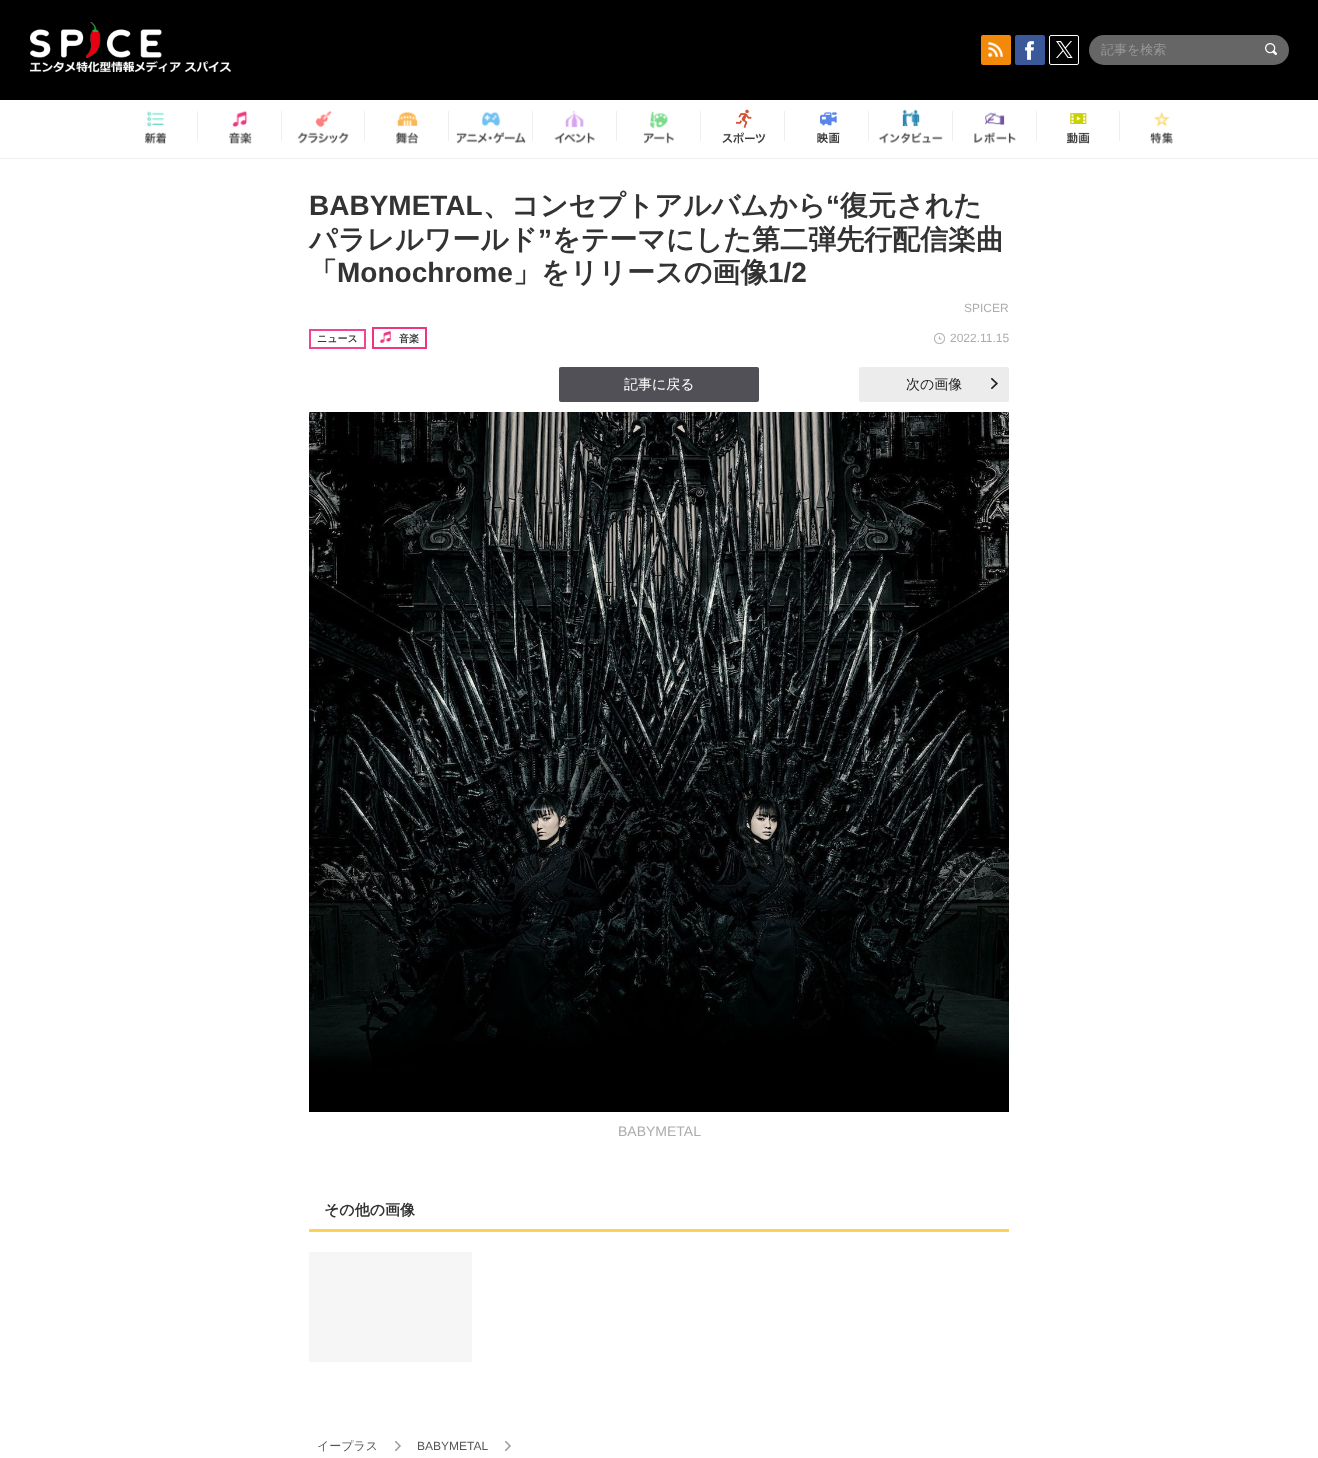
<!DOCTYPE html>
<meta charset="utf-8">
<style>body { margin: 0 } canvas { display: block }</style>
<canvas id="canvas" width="1318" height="1458"></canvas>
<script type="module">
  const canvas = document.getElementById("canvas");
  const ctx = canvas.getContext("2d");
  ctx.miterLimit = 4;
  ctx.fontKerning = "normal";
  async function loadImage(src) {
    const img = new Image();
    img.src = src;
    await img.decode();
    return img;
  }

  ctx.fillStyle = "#ffffff";
  ctx.fillRect(0, 0, 1318, 1458);
  ctx.fillStyle = "#000000";
  ctx.fillRect(0, 0, 1318, 100);
  ctx.drawImage(await loadImage("img1.png"), 30, 22, 201, 50);
  ctx.fillStyle = "#f2890a";
  ctx.beginPath();
  ctx.roundRect(981, 35, 30, 30, 2);
  ctx.fill();
  ctx.drawImage(await loadImage("img2.png"), 988, 42, 15, 15);
  ctx.fillStyle = "#3b5999";
  ctx.beginPath();
  ctx.roundRect(1015, 35, 30, 30, 2);
  ctx.fill();
  ctx.drawImage(await loadImage("img3.png"), 1025, 41, 9, 19);
  ctx.beginPath();
  ctx.roundRect(1049.5, 35.5, 29, 29, 1.5);
  ctx.strokeStyle = "#ffffff";
  ctx.stroke();
  ctx.drawImage(await loadImage("img4.png"), 1056, 41, 17, 17);
  ctx.fillStyle = "#666666";
  ctx.beginPath();
  ctx.roundRect(1089, 35, 200, 30, 15);
  ctx.fill();
  ctx.save();
  ctx.beginPath();
  ctx.rect(1101, 41, 153, 18);
  ctx.clip();
  ctx.font = "500 13px WenQuanYi Zen Hei";
  ctx.fillStyle = "#999999";
  ctx.fillText("記事を検索", 1101, 54);
  ctx.restore();
  ctx.drawImage(await loadImage("img5.png"), 1265, 43, 12, 12);
  ctx.fillStyle = "#eeeeee";
  ctx.fillRect(0, 158, 1318, 1);
  ctx.drawImage(await loadImage("img6.png"), 145, 111, 22, 33);
  ctx.fillRect(197, 111, 1, 30);
  ctx.drawImage(await loadImage("img7.png"), 229, 111, 23, 33);
  ctx.fillRect(281, 111, 1, 30);
  ctx.drawImage(await loadImage("img8.png"), 297, 110, 52, 34);
  ctx.fillRect(364, 111, 1, 30);
  ctx.drawImage(await loadImage("img9.png"), 396, 111, 23, 33);
  ctx.fillRect(448, 111, 1, 30);
  ctx.drawImage(await loadImage("img10.png"), 456, 111, 70, 33);
  ctx.fillRect(532, 111, 1, 30);
  ctx.drawImage(await loadImage("img11.png"), 554, 110, 41, 34);
  ctx.fillRect(616, 111, 1, 30);
  ctx.drawImage(await loadImage("img12.png"), 643, 111, 31, 33);
  ctx.fillRect(700, 111, 1, 30);
  ctx.drawImage(await loadImage("img13.png"), 722, 109, 44, 35);
  ctx.fillRect(784, 111, 1, 30);
  ctx.drawImage(await loadImage("img14.png"), 817, 112, 23, 32);
  ctx.fillRect(868, 111, 1, 30);
  ctx.drawImage(await loadImage("img15.png"), 878, 109, 65, 35);
  ctx.fillRect(952, 111, 1, 30);
  ctx.drawImage(await loadImage("img16.png"), 974, 112, 42, 32);
  ctx.fillRect(1036, 111, 1, 30);
  ctx.drawImage(await loadImage("img17.png"), 1066, 113, 24, 31);
  ctx.fillRect(1119, 111, 1, 30);
  ctx.drawImage(await loadImage("img18.png"), 1150, 111, 23, 33);
  ctx.font = "bold 28px Liberation Sans";
  ctx.fillStyle = "#333333";
  ctx.fillText("BABYMETAL", 309, 215);
  ctx.font = "bold 28px WenQuanYi Zen Hei";
  ctx.fillText("、コンセプトアルバムから", 483, 215);
  ctx.font = "bold 28px Liberation Sans";
  ctx.fillText("“", 826, 215);
  ctx.font = "bold 28px WenQuanYi Zen Hei";
  ctx.fillText("復元された", 840, 215);
  ctx.fillText("パラレルワールド", 309, 249);
  ctx.font = "bold 28px Liberation Sans";
  ctx.fillText("”", 538, 249);
  ctx.font = "bold 28px WenQuanYi Zen Hei";
  ctx.fillText("をテーマにした第二弾先行配信楽曲", 552, 249);
  ctx.fillText("「", 309, 282);
  ctx.font = "bold 28px Liberation Sans";
  ctx.fillText("Monochrome", 337, 282);
  ctx.font = "bold 28px WenQuanYi Zen Hei";
  ctx.fillText("」をリリースの画像", 513, 282);
  ctx.font = "bold 28px Liberation Sans";
  ctx.fillText("1/2", 768, 282);
  ctx.font = "12px Liberation Sans";
  ctx.fillStyle = "#acacac";
  ctx.fillText("SPICER", 964, 312);
  ctx.strokeStyle = "#f04596";
  ctx.lineWidth = 2;
  ctx.strokeRect(310, 330, 55, 18);
  ctx.font = "bold 10px WenQuanYi Zen Hei";
  ctx.fillStyle = "#333333";
  ctx.fillText("ニュース", 317, 342);
  ctx.strokeStyle = "#ef357f";
  ctx.strokeRect(373, 328, 53, 20);
  ctx.drawImage(await loadImage("img19.png"), 380, 331, 11, 12);
  ctx.fillText("音楽", 399, 342);
  ctx.drawImage(await loadImage("img20.png"), 934, 333, 11, 11);
  ctx.font = "12px Liberation Sans";
  ctx.fillStyle = "#acacac";
  ctx.fillText("2022.11.15", 950, 342);
  ctx.fillStyle = "#515056";
  ctx.beginPath();
  ctx.roundRect(559, 367, 200, 35, 2);
  ctx.fill();
  ctx.font = "500 14px WenQuanYi Zen Hei";
  ctx.fillStyle = "#ffffff";
  ctx.fillText("記事に戻る", 624, 389);
  ctx.fillStyle = "#ececec";
  ctx.beginPath();
  ctx.roundRect(859, 367, 150, 35, 2);
  ctx.fill();
  ctx.fillStyle = "#1e1e1e";
  ctx.fillText("次の画像", 906, 389);
  ctx.drawImage(await loadImage("img21.png"), 991, 378, 7, 11);
  ctx.drawImage(await loadImage("img22.png"), 309, 412, 700, 700);
  ctx.font = "14px Liberation Sans";
  ctx.fillStyle = "#acacac";
  ctx.fillText("BABYMETAL", 618, 1136);
  ctx.fillStyle = "#fed257";
  ctx.fillRect(309, 1229, 700, 3);
  ctx.font = "bold 15px WenQuanYi Zen Hei";
  ctx.fillStyle = "#333333";
  ctx.fillText("その他の画像", 324, 1215);
  ctx.fillStyle = "#f6f6f6";
  ctx.fillRect(309, 1252, 163, 110);
  ctx.font = "500 12px WenQuanYi Zen Hei";
  ctx.fillStyle = "#565656";
  ctx.fillText("イープラス", 317, 1450);
  ctx.drawImage(await loadImage("img23.png"), 395, 1441, 6, 10);
  ctx.font = "12px Liberation Sans";
  ctx.fillText("BABYMETAL", 417, 1450);
  ctx.drawImage(await loadImage("img23.png"), 505, 1441, 6, 10);
</script>
